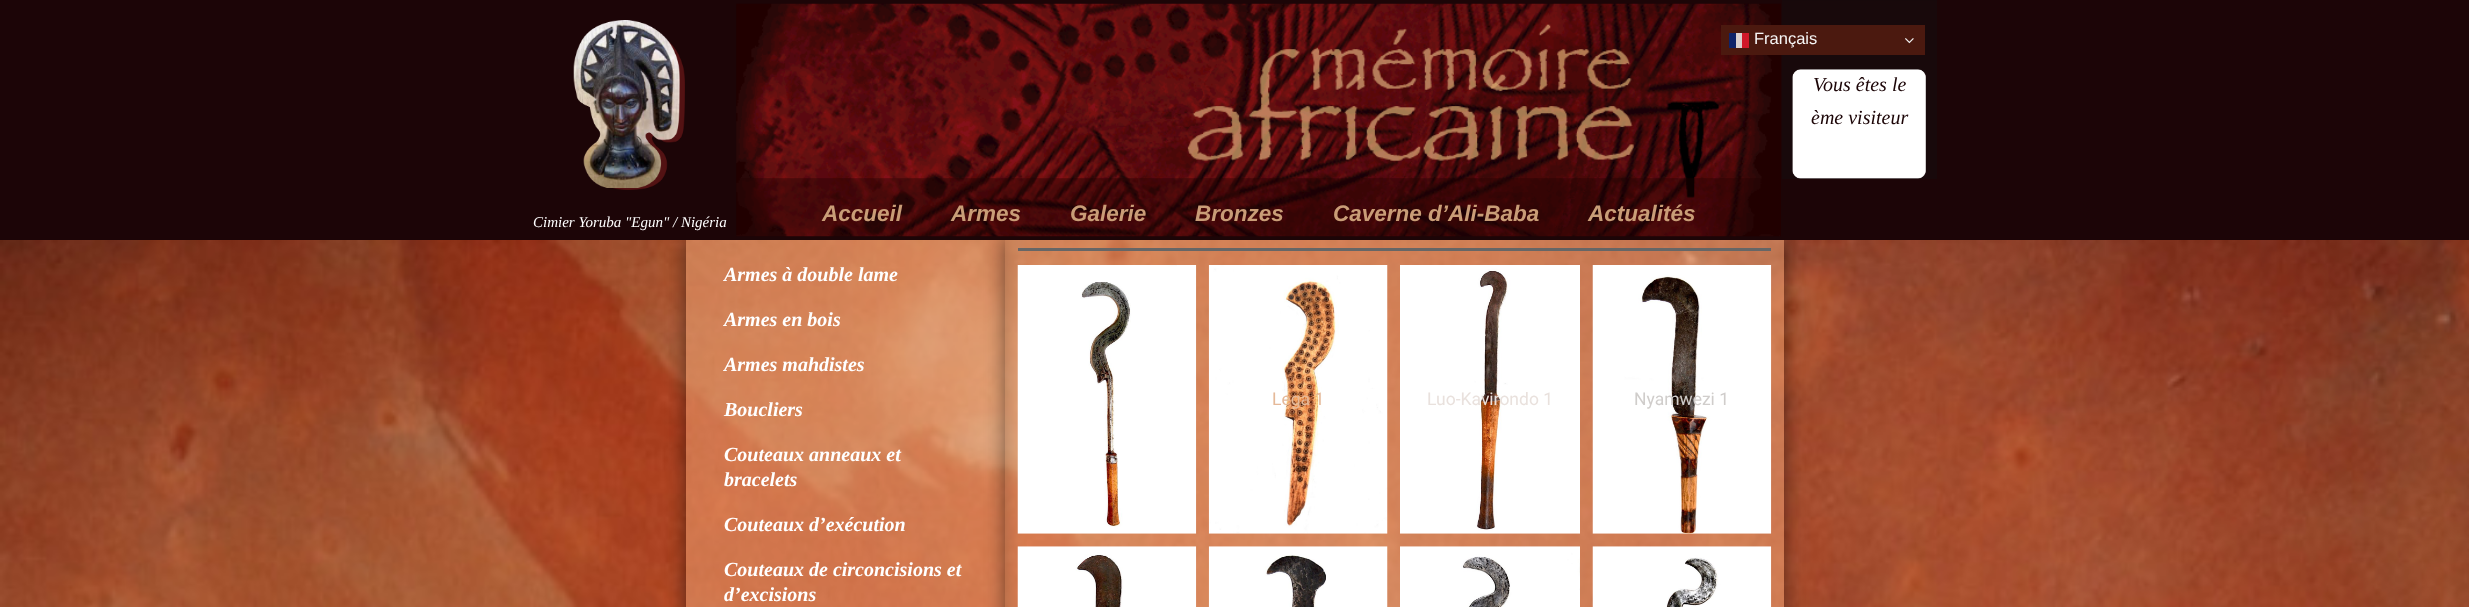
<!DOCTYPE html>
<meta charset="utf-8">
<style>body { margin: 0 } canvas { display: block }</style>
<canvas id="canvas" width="2469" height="607"></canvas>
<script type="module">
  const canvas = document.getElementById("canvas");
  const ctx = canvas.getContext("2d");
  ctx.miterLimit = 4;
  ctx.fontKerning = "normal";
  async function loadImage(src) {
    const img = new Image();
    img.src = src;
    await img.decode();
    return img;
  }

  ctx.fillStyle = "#ffffff";
  ctx.fillRect(0, 0, 2469, 607);
  ctx.drawImage(await loadImage("img5.png"), 0, 240, 2469, 367);
  ctx.save();
  ctx.beginPath();
  ctx.moveTo(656, 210);
  ctx.lineTo(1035, 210);
  ctx.lineTo(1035, 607);
  ctx.lineTo(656, 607);
  ctx.closePath();
  ctx.moveTo(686, 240);
  ctx.lineTo(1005, 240);
  ctx.lineTo(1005, 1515);
  ctx.lineTo(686, 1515);
  ctx.closePath();
  ctx.clip("evenodd");
  ctx.fillStyle = "rgba(0, 0, 0, 0.5)";
  ctx.filter = "blur(9.5px)";
  ctx.beginPath();
  ctx.rect(686, 240, 319, 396);
  ctx.fill();
  ctx.filter = "none";
  ctx.restore();
  ctx.fillStyle = "rgba(255, 183, 131, 0.44)";
  ctx.fillRect(686, 240, 319, 367);
  ctx.save();
  ctx.beginPath();
  ctx.moveTo(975, 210);
  ctx.lineTo(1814, 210);
  ctx.lineTo(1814, 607);
  ctx.lineTo(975, 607);
  ctx.closePath();
  ctx.moveTo(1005, 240);
  ctx.lineTo(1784, 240);
  ctx.lineTo(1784, 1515);
  ctx.lineTo(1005, 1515);
  ctx.closePath();
  ctx.clip("evenodd");
  ctx.fillStyle = "rgba(0, 0, 0, 0.5)";
  ctx.filter = "blur(9.5px)";
  ctx.beginPath();
  ctx.rect(1005, 240, 779, 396);
  ctx.fill();
  ctx.filter = "none";
  ctx.restore();
  ctx.fillStyle = "#1c0507";
  ctx.fillRect(0, 0, 2469, 240);
  ctx.drawImage(await loadImage("img1.png"), 1782, 0, 155, 179);
  ctx.drawImage(await loadImage("img3.png"), 736, 3, 1045, 234);
  ctx.fillStyle = "#4b190f";
  ctx.fillRect(1721, 25, 204, 30);
  ctx.fillStyle = "#0f2369";
  ctx.fillRect(1729, 33, 7, 15);
  ctx.fillStyle = "#dbd1cf";
  ctx.fillRect(1736, 33, 6, 15);
  ctx.fillStyle = "#d11829";
  ctx.fillRect(1742, 33, 7, 15);
  ctx.font = "16.5px Liberation Sans";
  ctx.fillStyle = "#f7f7f7";
  ctx.fillText("Français", 1754, 44);
  ctx.drawImage(await loadImage("img2.png"), 1905, 38, 9, 6);
  ctx.font = "italic 20px Liberation Serif";
  ctx.fillStyle = "#1c0507";
  ctx.fillText("Vous êtes le", 1813, 91);
  ctx.fillText("ème visiteur", 1811, 124);
  ctx.font = "italic bold 22.5px Liberation Sans";
  ctx.fillStyle = "#c99d77";
  ctx.fillText("Accueil", 822, 221);
  ctx.fillText("Armes", 951, 221);
  ctx.fillText("Galerie", 1070, 221);
  ctx.fillText("Bronzes", 1195, 221);
  ctx.fillText("Caverne d’Ali-Baba", 1333, 221);
  ctx.fillText("Actualités", 1588, 221);
  ctx.drawImage(await loadImage("img4.png"), 573, 20, 112, 170);
  ctx.font = "italic 15px Liberation Serif";
  ctx.fillStyle = "#ffffff";
  ctx.fillText("Cimier Yoruba \"Egun\" / Nigéria", 533, 227);
  ctx.font = "italic bold 20px Liberation Serif";
  ctx.fillText("Armes à double lame", 724, 281);
  ctx.fillText("Armes en bois", 724, 326);
  ctx.fillText("Armes mahdistes", 724, 371);
  ctx.fillText("Boucliers", 724, 416);
  ctx.fillText("Couteaux anneaux et", 724, 461);
  ctx.fillText("bracelets", 724, 486);
  ctx.fillText("Couteaux d’exécution", 724, 531);
  ctx.fillText("Couteaux de circoncisions et", 724, 576);
  ctx.fillText("d’excisions", 724, 601);
  ctx.fillStyle = "rgba(255, 183, 131, 0.44)";
  ctx.fillRect(1005, 240, 779, 367);
  ctx.fillStyle = "#666666";
  ctx.fillRect(1018, 248, 753, 3);
  ctx.drawImage(await loadImage("img6.png"), 1017, 265, 180, 269);
  ctx.drawImage(await loadImage("img7.png"), 1208, 265, 180, 269);
  ctx.font = "17.5px Roboto";
  ctx.fillStyle = "#e5b999";
  ctx.fillText("Lega 1", 1272, 405);
  ctx.drawImage(await loadImage("img8.png"), 1400, 265, 180, 269);
  ctx.fillStyle = "#e9e1dd";
  ctx.fillText("Luo-Kavirondo 1", 1427, 405);
  ctx.drawImage(await loadImage("img9.png"), 1592, 265, 180, 269);
  ctx.fillStyle = "#d0cdcb";
  ctx.fillText("Nyamwezi 1", 1634, 405);
  ctx.drawImage(await loadImage("img10.png"), 1017, 546, 180, 61);
  ctx.drawImage(await loadImage("img11.png"), 1208, 546, 180, 61);
  ctx.drawImage(await loadImage("img12.png"), 1400, 546, 180, 61);
  ctx.drawImage(await loadImage("img13.png"), 1592, 546, 180, 61);
</script>
